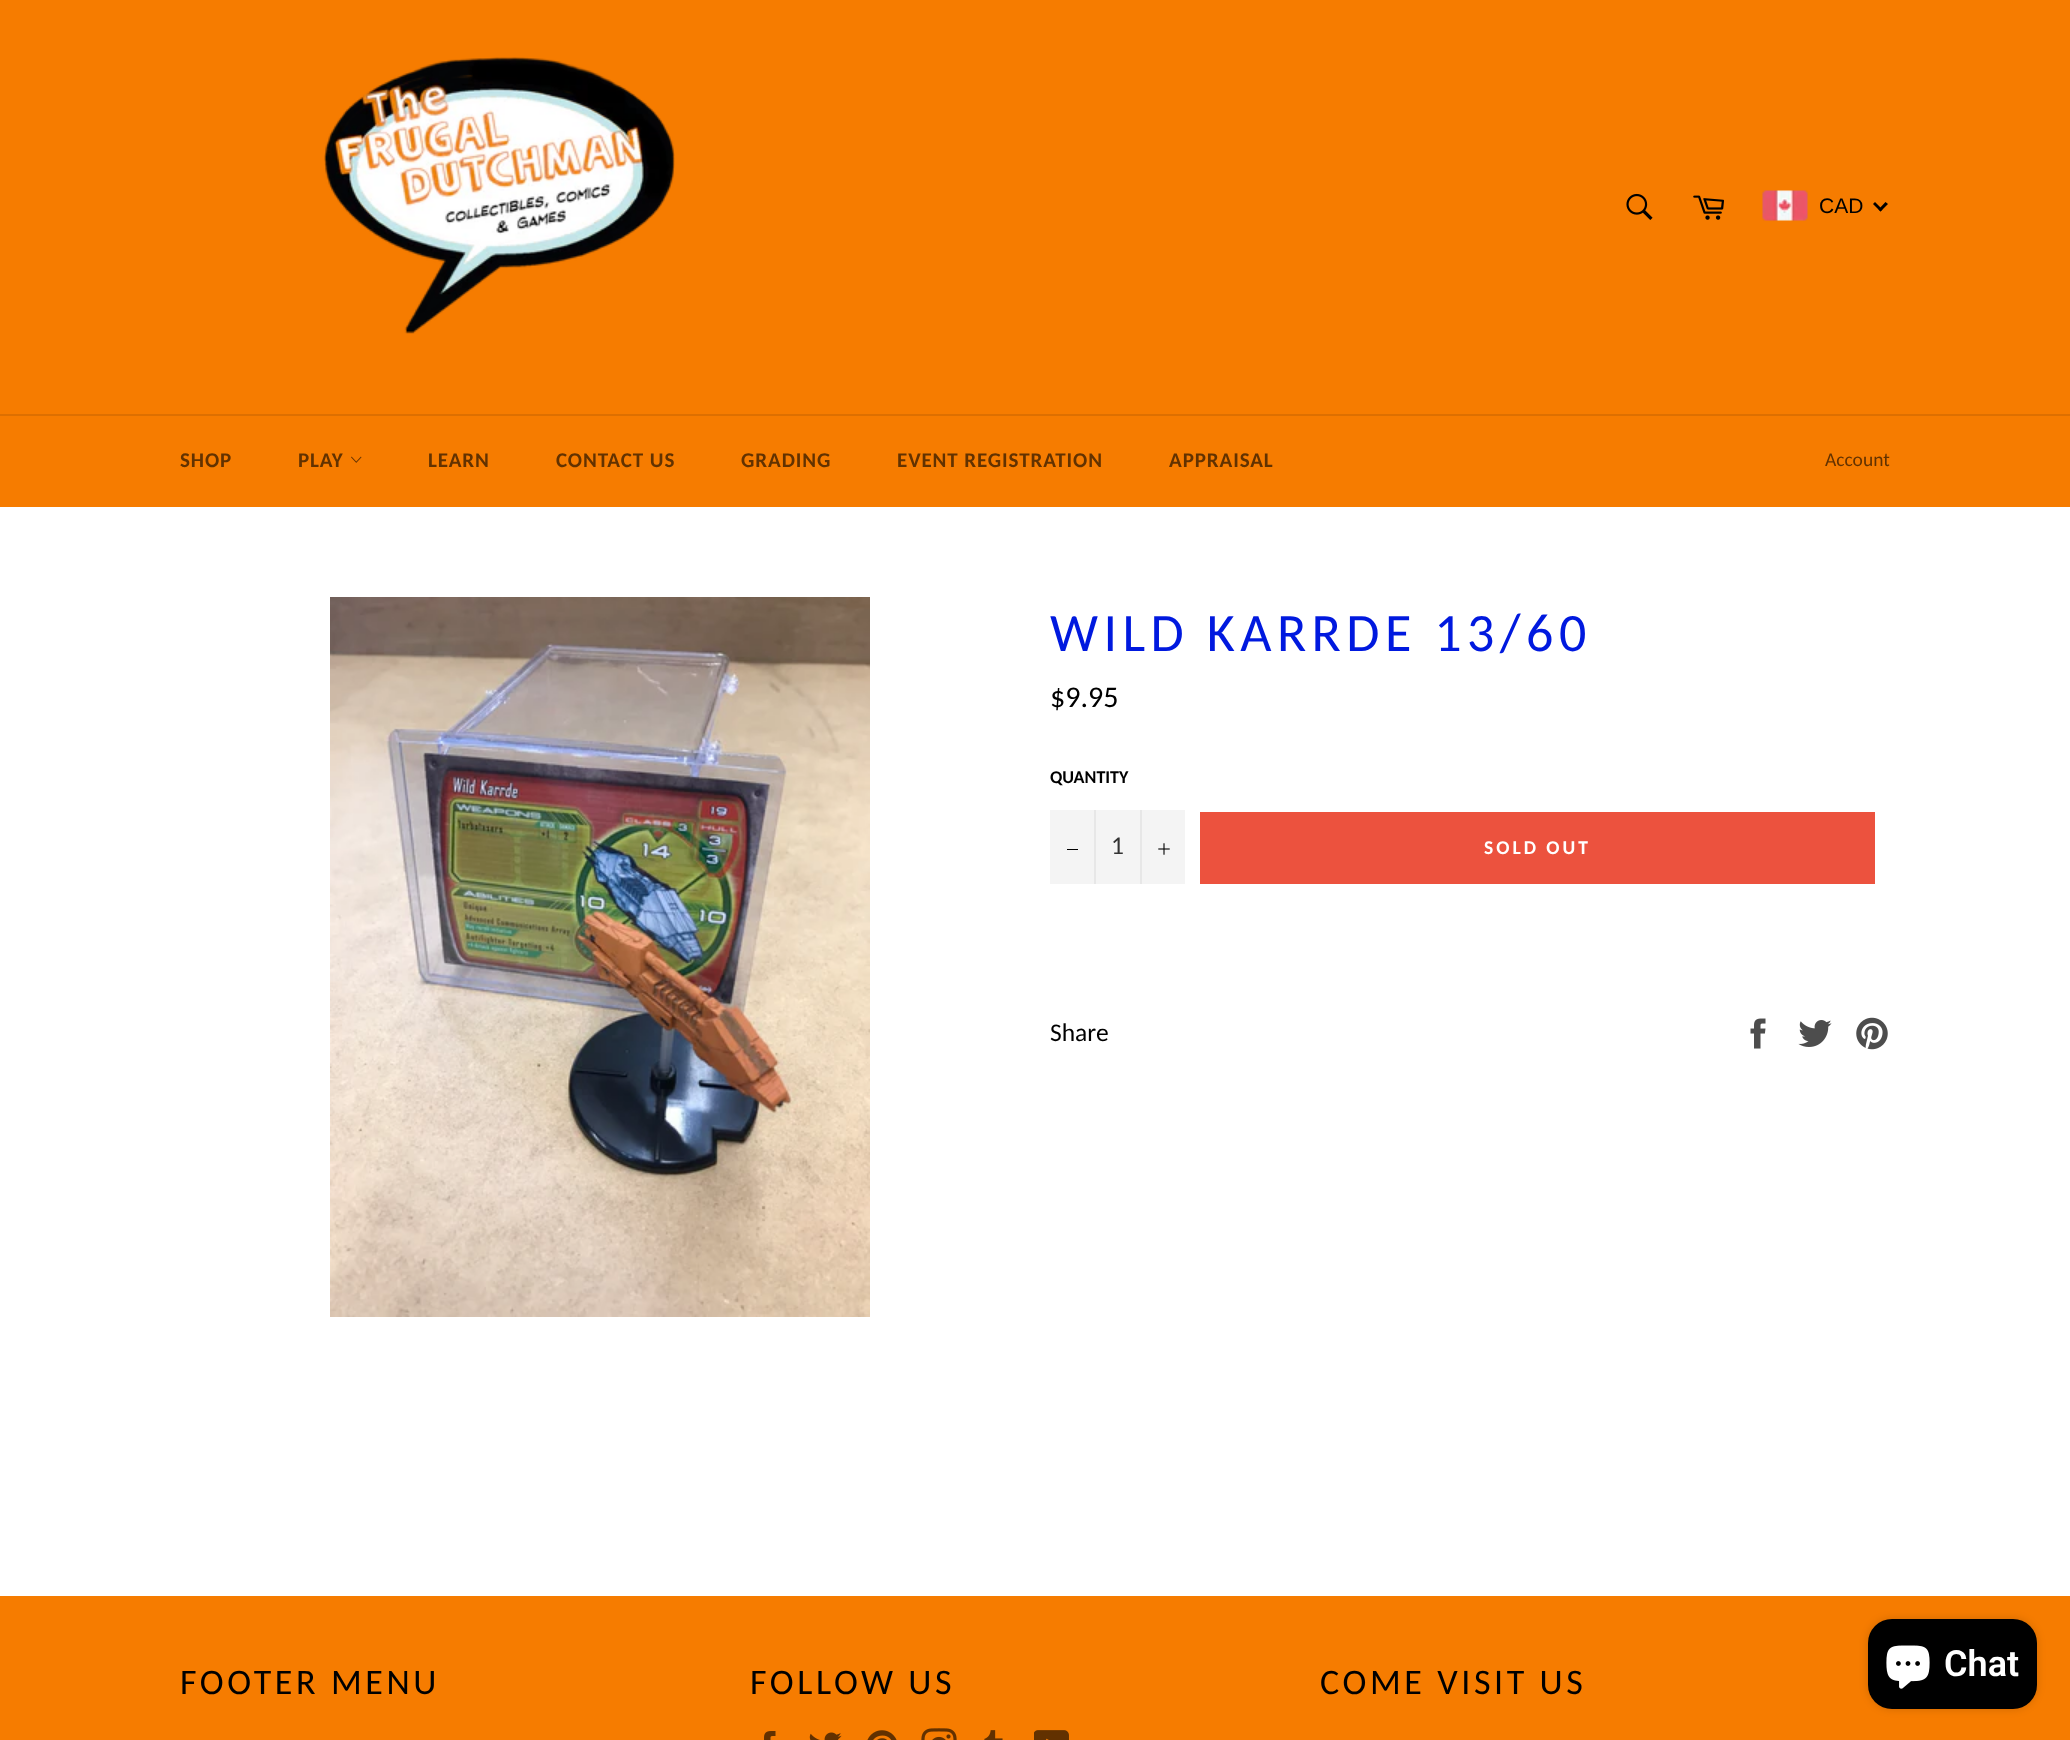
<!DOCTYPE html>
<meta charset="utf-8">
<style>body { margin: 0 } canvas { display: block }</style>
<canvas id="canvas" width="2070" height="1740"></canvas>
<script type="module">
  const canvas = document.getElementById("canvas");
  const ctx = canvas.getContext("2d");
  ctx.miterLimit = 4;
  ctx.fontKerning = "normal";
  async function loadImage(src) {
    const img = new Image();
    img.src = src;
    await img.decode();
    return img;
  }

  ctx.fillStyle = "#ffffff";
  ctx.fillRect(0, 0, 2070, 1740);
  ctx.fillStyle = "#f67c00";
  ctx.fillRect(0, 0, 2070, 507);
  ctx.drawImage(await loadImage("img1.png"), 324, 57, 351, 277);
  ctx.drawImage(await loadImage("img2.png"), 1626, 193, 27, 27);
  ctx.drawImage(await loadImage("img3.png"), 1693, 195, 31, 25);
  ctx.drawImage(await loadImage("img4.png"), 1762, 190, 46, 31);
  ctx.font = "21px Liberation Sans";
  ctx.fillStyle = "#000000";
  ctx.fillText("CAD", 1819, 213);
  ctx.beginPath();
  ctx.moveTo(1885.5, 202);
  ctx.lineTo(1888, 204);
  ctx.lineTo(1880.5, 211.5);
  ctx.lineTo(1878.5, 209.5);
  ctx.closePath();
  ctx.fill();
  ctx.beginPath();
  ctx.moveTo(1875, 202);
  ctx.lineTo(1882.5, 209.5);
  ctx.lineTo(1880.5, 211.5);
  ctx.lineTo(1873, 204);
  ctx.closePath();
  ctx.fill();
  ctx.fillStyle = "#dd6f00";
  ctx.fillRect(0, 414, 2070, 2);
  ctx.letterSpacing = "0.9px";
  ctx.font = "bold 21px Carlito";
  ctx.fillStyle = "#623200";
  ctx.fillText("SHOP", 180, 467);
  ctx.fillText("PLAY", 298, 467);
  ctx.drawImage(await loadImage("img5.png"), 351, 456, 11, 7);
  ctx.fillText("LEARN", 428, 467);
  ctx.fillText("CONTACT US", 556, 467);
  ctx.fillText("GRADING", 741, 467);
  ctx.fillText("EVENT REGISTRATION", 897, 467);
  ctx.fillText("APPRAISAL", 1169, 467);
  ctx.letterSpacing = "0px";
  ctx.font = "19.5px Carlito";
  ctx.fillText("Account", 1825, 466);
  ctx.drawImage(await loadImage("img6.png"), 330, 597, 540, 720);
  ctx.letterSpacing = "5.4px";
  ctx.font = "54px Carlito";
  ctx.fillStyle = "#0019df";
  ctx.fillText("WILD KARRDE 13/60", 1050, 651);
  ctx.letterSpacing = "0px";
  ctx.font = "30px Carlito";
  ctx.fillStyle = "#000000";
  ctx.fillText("$9.95", 1050, 707);
  ctx.font = "bold 18px Carlito";
  ctx.fillText("QUANTITY", 1050, 783);
  ctx.fillStyle = "#f4f4f4";
  ctx.fillRect(1050, 810, 135, 74);
  ctx.fillStyle = "#e7e7e7";
  ctx.fillRect(1094, 810, 2, 74);
  ctx.fillStyle = "#000000";
  ctx.fillRect(1067, 849, 11, 1);
  ctx.font = "25.5px Carlito";
  ctx.fillStyle = "#333333";
  ctx.fillText("1", 1111, 854);
  ctx.fillStyle = "#e7e7e7";
  ctx.fillRect(1140, 810, 2, 74);
  ctx.drawImage(await loadImage("img7.png"), 1158, 843, 12, 12);
  ctx.fillStyle = "#ec523e";
  ctx.fillRect(1200, 812, 675, 72);
  ctx.letterSpacing = "3px";
  ctx.font = "bold 19.5px Carlito";
  ctx.fillStyle = "#ffffff";
  ctx.fillText("SOLD OUT", 1484, 854);
  ctx.letterSpacing = "0px";
  ctx.font = "25.5px Carlito";
  ctx.fillStyle = "#000000";
  ctx.fillText("Share", 1050, 1041);
  ctx.drawImage(await loadImage("img8.png"), 1750, 1018, 16, 31);
  ctx.drawImage(await loadImage("img9.png"), 1798, 1020, 34, 27);
  ctx.drawImage(await loadImage("img10.png"), 1856, 1017, 32, 33);
  ctx.fillStyle = "#f67c00";
  ctx.fillRect(0, 1596, 2070, 144);
  ctx.letterSpacing = "3.6px";
  ctx.font = "36px Carlito";
  ctx.fillStyle = "#000000";
  ctx.fillText("FOOTER MENU", 180, 1694);
  ctx.fillText("FOLLOW US", 750, 1694);
  ctx.drawImage(await loadImage("img11.png"), 764, 1731, 12, 9);
  ctx.drawImage(await loadImage("img12.png"), 809, 1732, 33, 8);
  ctx.drawImage(await loadImage("img13.png"), 867, 1730, 30, 10);
  ctx.drawImage(await loadImage("img14.png"), 921, 1728, 36, 12);
  ctx.drawImage(await loadImage("img15.png"), 984, 1730, 19, 10);
  ctx.drawImage(await loadImage("img16.png"), 1034, 1730, 35, 10);
  ctx.fillText("COME VISIT US", 1320, 1694);
  ctx.fillStyle = "rgba(0, 0, 0, 0.15)";
  ctx.filter = "blur(4px)";
  ctx.beginPath();
  ctx.roundRect(1868, 1619, 169, 90, 24);
  ctx.fill();
  ctx.filter = "none";
  ctx.fillStyle = "#000000";
  ctx.beginPath();
  ctx.roundRect(1868, 1619, 169, 90, 24);
  ctx.fill();
  ctx.drawImage(await loadImage("img17.png"), 1886, 1645, 44, 44);
  ctx.letterSpacing = "0px";
  ctx.font = "600 36px Roboto";
  ctx.fillStyle = "#ffffff";
  ctx.fillText("Chat", 1944, 1676);
</script>
